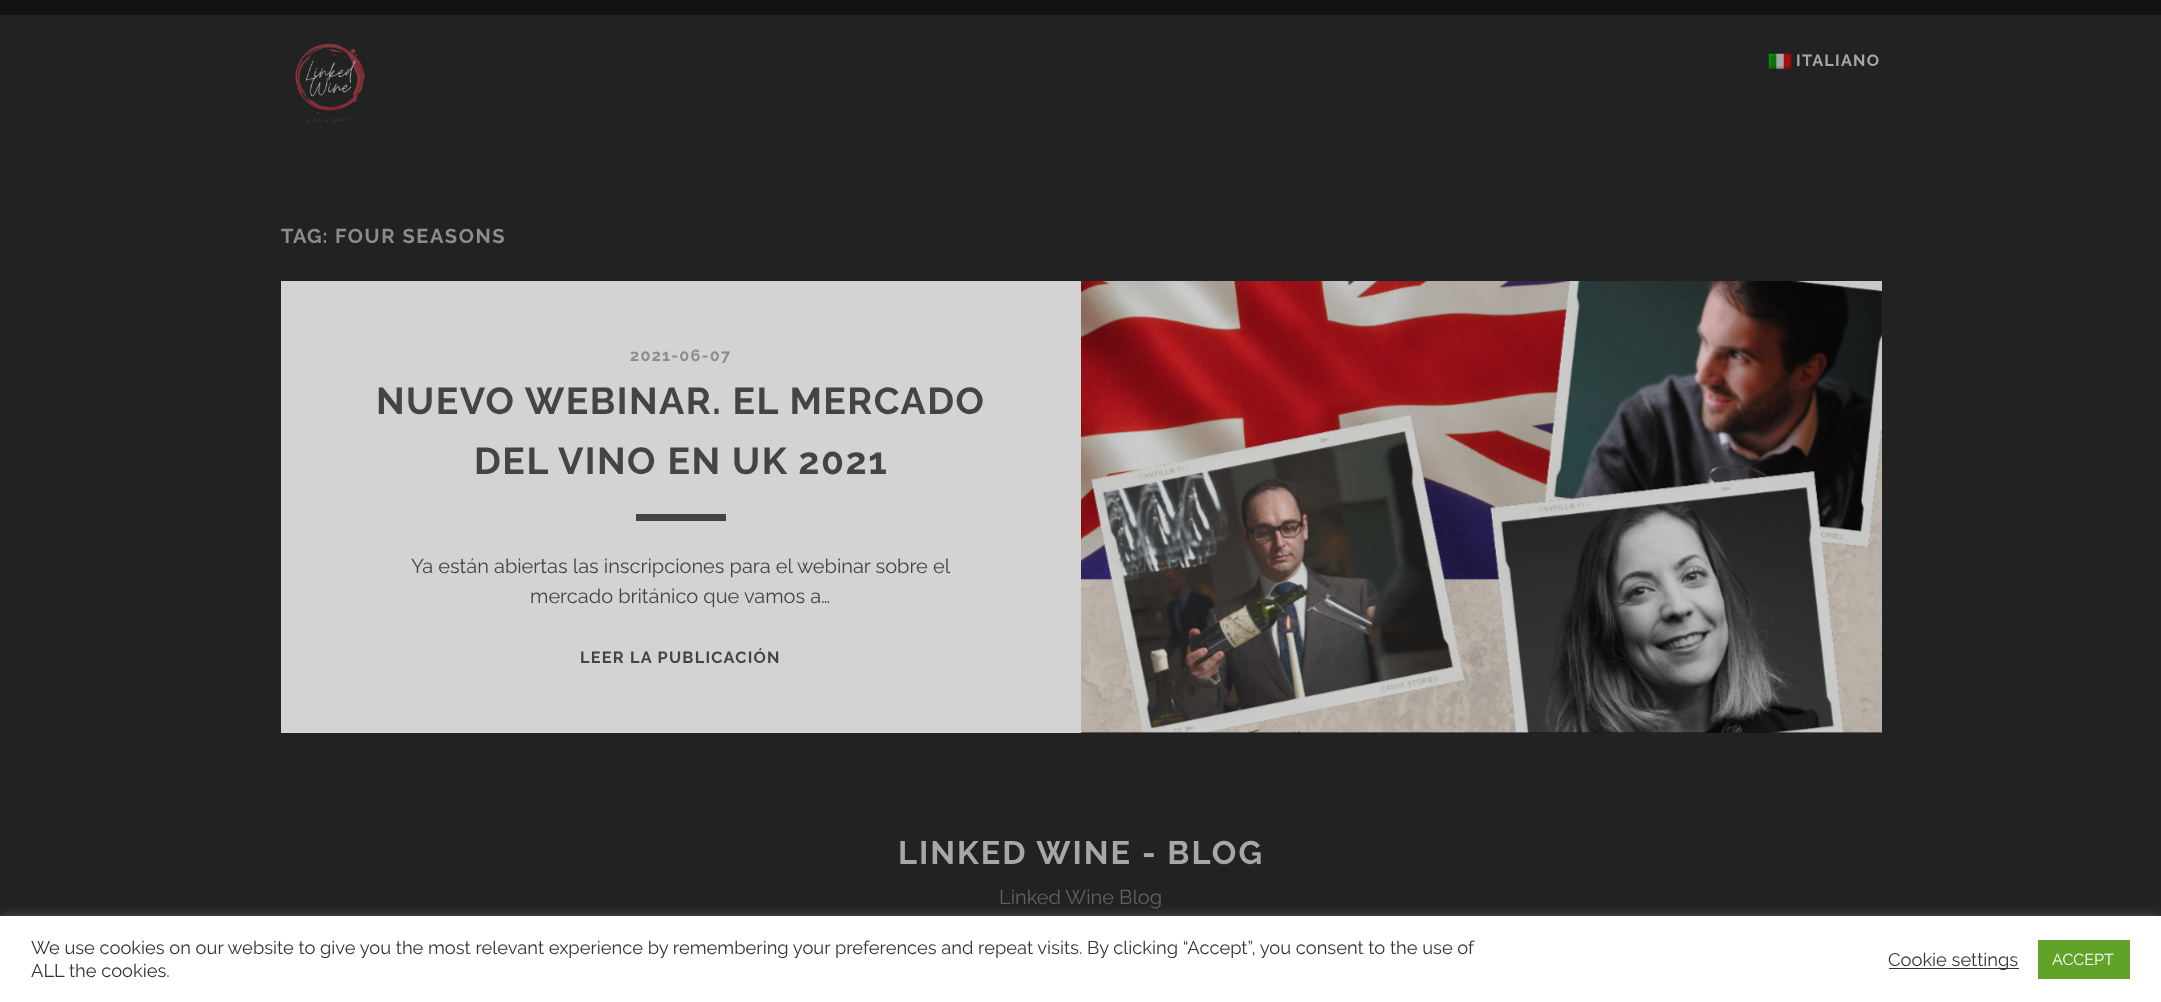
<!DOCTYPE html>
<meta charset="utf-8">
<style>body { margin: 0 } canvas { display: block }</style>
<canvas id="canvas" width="2161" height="1002"></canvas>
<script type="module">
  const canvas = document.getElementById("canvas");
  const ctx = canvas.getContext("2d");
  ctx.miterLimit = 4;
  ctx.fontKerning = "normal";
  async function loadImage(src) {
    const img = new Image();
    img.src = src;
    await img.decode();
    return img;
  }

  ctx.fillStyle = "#222222";
  ctx.fillRect(0, 0, 2161, 1002);
  ctx.fillStyle = "#111111";
  ctx.fillRect(0, 0, 2161, 15);
  ctx.drawImage(await loadImage("img1.png"), 295, 43, 70, 80);
  ctx.drawImage(await loadImage("img2.png"), 1768, 53, 24, 16);
  ctx.letterSpacing = "1.25px";
  ctx.font = "bold 16.25px Raleway";
  ctx.fillStyle = "#a7a7a7";
  ctx.fillText("ITALIANO", 1796, 66);
  ctx.letterSpacing = "1px";
  ctx.font = "bold 20px Raleway";
  ctx.fillStyle = "#8c8c8c";
  ctx.fillText("TAG:", 281, 243);
  ctx.letterSpacing = "1.6px";
  ctx.fillText("FOUR SEASONS", 335, 243);
  ctx.fillStyle = "#141414";
  ctx.fillRect(1081, 281, 800, 452);
  ctx.fillStyle = "#d3d3d3";
  ctx.fillRect(281, 281, 800, 452);
  ctx.letterSpacing = "1.25px";
  ctx.font = "bold 16.25px Raleway";
  ctx.fillStyle = "#8c8c8c";
  ctx.fillText("2021-06-07", 630, 361);
  ctx.letterSpacing = "1.5px";
  ctx.font = "bold 37.5px Raleway";
  ctx.fillStyle = "#444444";
  ctx.fillText("NUEVO WEBINAR. EL MERCADO", 376, 414);
  ctx.fillText("DEL VINO EN UK 2021", 474, 474);
  ctx.fillRect(636, 514, 90, 7);
  ctx.letterSpacing = "0px";
  ctx.font = "20px Raleway";
  ctx.fillText("Ya están abiertas las inscripciones para el webinar sobre el", 411, 573);
  ctx.fillText("mercado británico que vamos a…", 530, 603);
  ctx.letterSpacing = "1.25px";
  ctx.font = "bold 16.25px Raleway";
  ctx.fillText("LEER LA PUBLICACIÓN", 580, 663);
  ctx.drawImage(await loadImage("img3.png"), 1081, 281, 801, 452);
  ctx.letterSpacing = "2px";
  ctx.font = "bold 32.5px Raleway";
  ctx.fillStyle = "#a7a7a7";
  ctx.fillText("LINKED WINE - BLOG", 898, 864);
  ctx.letterSpacing = "0px";
  ctx.font = "20px Raleway";
  ctx.fillStyle = "#626262";
  ctx.fillText("Linked Wine Blog", 999, 904);
  ctx.fillStyle = "rgba(172, 171, 171, 0.3)";
  ctx.filter = "blur(6px)";
  ctx.beginPath();
  ctx.rect(0, 915, 2161, 86);
  ctx.fill();
  ctx.filter = "none";
  ctx.fillStyle = "#ffffff";
  ctx.fillRect(0, 916, 2161, 86);
  ctx.font = "18.33px Raleway";
  ctx.fillStyle = "#333333";
  ctx.fillText("We use cookies on our website to give you the most relevant experience by remembering your preferences and repeat visits. By clicking “Accept”, you consent to the use of", 31, 954);
  ctx.fillText("ALL the cookies.", 31, 977);
  ctx.fillRect(1889, 968, 130, 1);
  ctx.fillText("Cookie settings", 1888, 966);
  ctx.fillStyle = "#61a229";
  ctx.fillRect(2038, 940, 92, 39);
  ctx.font = "16px Raleway";
  ctx.fillStyle = "#ffffff";
  ctx.fillText("ACCEPT", 2052, 965);
</script>
